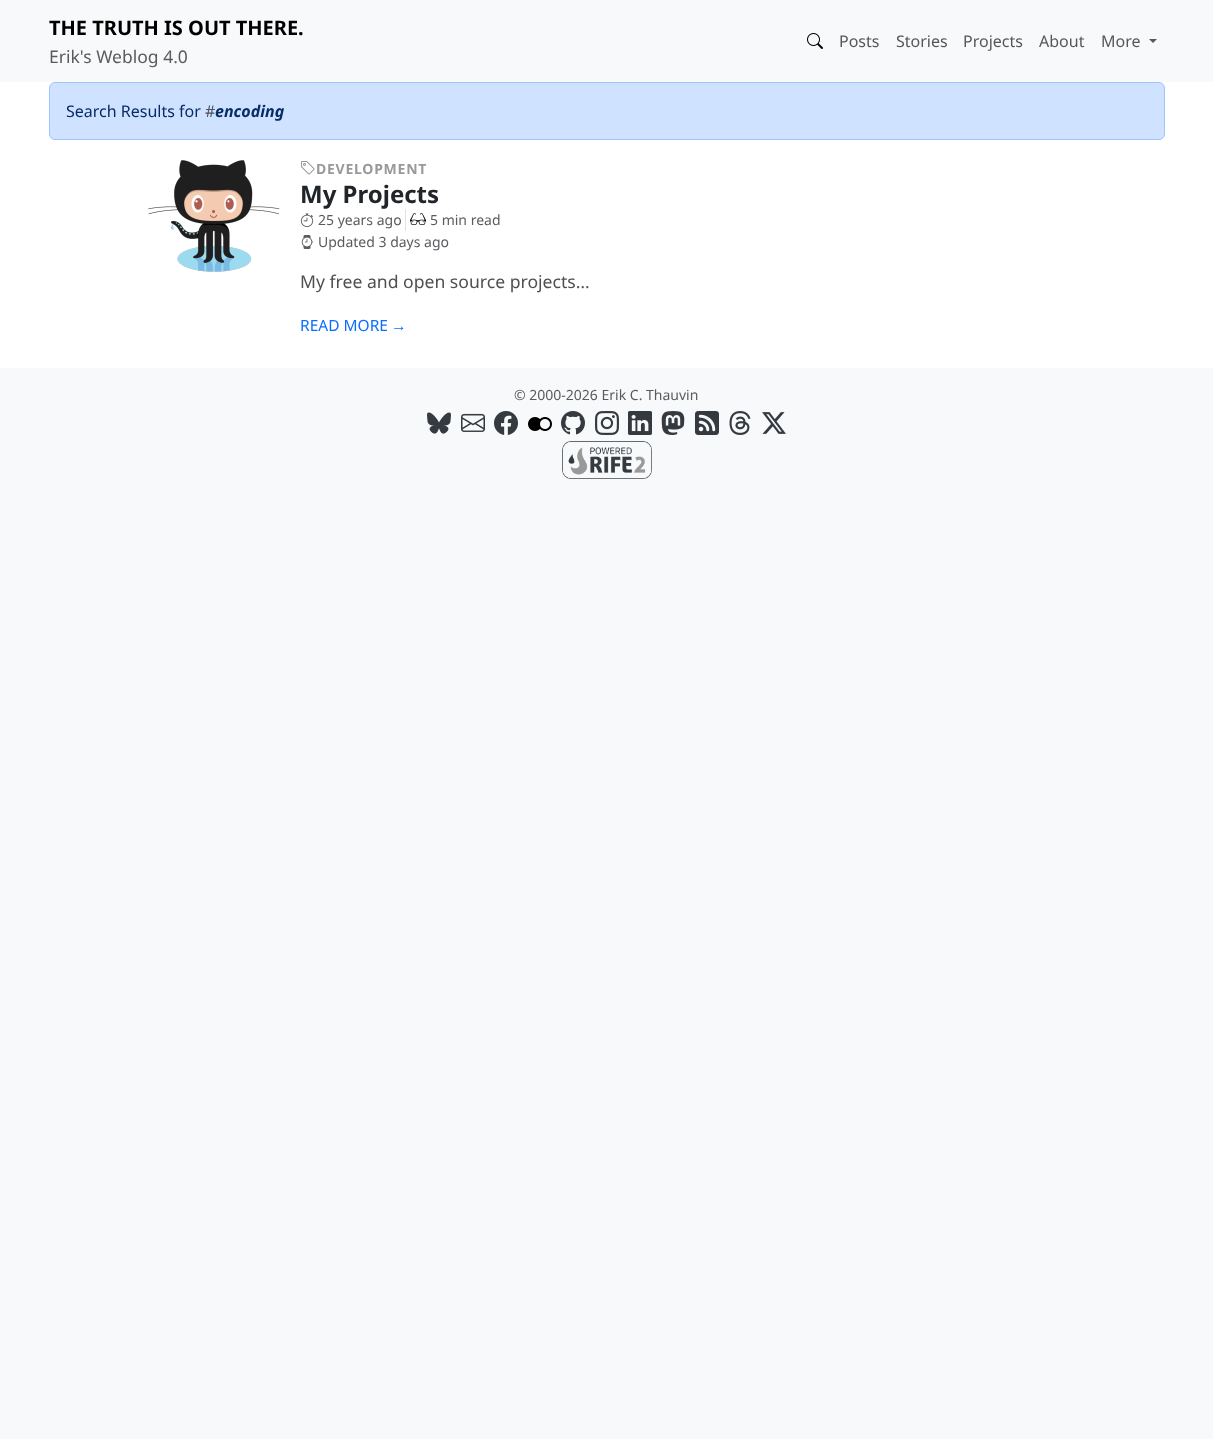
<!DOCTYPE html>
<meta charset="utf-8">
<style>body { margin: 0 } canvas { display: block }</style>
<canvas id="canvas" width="1213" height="1439"></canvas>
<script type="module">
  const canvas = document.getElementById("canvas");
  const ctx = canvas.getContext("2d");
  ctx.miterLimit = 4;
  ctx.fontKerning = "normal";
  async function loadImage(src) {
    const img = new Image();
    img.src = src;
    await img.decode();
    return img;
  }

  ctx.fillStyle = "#ffffff";
  ctx.fillRect(0, 0, 1213, 1439);
  ctx.fillStyle = "#f8f9fa";
  ctx.fillRect(0, 0, 1213, 82);
  ctx.font = "bold 20px Noto Sans";
  ctx.fillStyle = "#000000";
  ctx.fillText("THE TRUTH IS OUT THERE.", 49, 35);
  ctx.font = "17.5px Noto Sans";
  ctx.fillStyle = "#595c5f";
  ctx.fillText("Erik's Weblog 4.0", 49, 63);
  ctx.drawImage(await loadImage("img1.png"), 807, 33, 16, 16);
  ctx.font = "16px Noto Sans";
  ctx.fillStyle = "#575758";
  ctx.fillText("Posts", 839, 47);
  ctx.fillText("Stories", 896, 47);
  ctx.fillText("Projects", 963, 47);
  ctx.fillText("About", 1039, 47);
  ctx.fillText("More", 1101, 47);
  ctx.beginPath();
  ctx.moveTo(1149, 39);
  ctx.lineTo(1157, 39);
  ctx.lineTo(1153, 43);
  ctx.closePath();
  ctx.fill();
  ctx.fillStyle = "#cfe2ff";
  ctx.beginPath();
  ctx.roundRect(49.5, 82.5, 1115, 57, 5.5);
  ctx.fill();
  ctx.strokeStyle = "#9ec5fe";
  ctx.stroke();
  ctx.fillStyle = "#052c65";
  ctx.fillText("Search Results for", 66, 117);
  ctx.fillStyle = "#4d545f";
  ctx.fillText("#", 205, 117);
  ctx.font = "italic bold 16px Noto Sans";
  ctx.fillStyle = "#052c65";
  ctx.fillText("encoding", 215, 117);
  ctx.drawImage(await loadImage("img2.png"), 148, 160, 132, 112);
  ctx.drawImage(await loadImage("img3.png"), 301, 161, 14, 14);
  ctx.letterSpacing = "0.75px";
  ctx.font = "bold 14px Noto Sans";
  ctx.fillStyle = "#999999";
  ctx.fillText("DEVELOPMENT", 316, 174);
  ctx.letterSpacing = "0px";
  ctx.font = "bold 24px Noto Sans";
  ctx.fillStyle = "#212529";
  ctx.fillText("My Projects", 300, 203);
  ctx.drawImage(await loadImage("img4.png"), 300, 213, 14, 14);
  ctx.font = "14px Noto Sans";
  ctx.fillStyle = "#595c5f";
  ctx.fillText("25 years ago", 318, 225);
  ctx.fillStyle = "#dee2e6";
  ctx.fillRect(405, 209, 1, 22);
  ctx.drawImage(await loadImage("img5.png"), 410, 213, 16, 12);
  ctx.fillStyle = "#595c5f";
  ctx.fillText("5 min read", 430, 225);
  ctx.drawImage(await loadImage("img6.png"), 301, 235, 12, 14);
  ctx.fillText("Updated 3 days ago", 318, 247);
  ctx.font = "17.6px Noto Sans";
  ctx.fillStyle = "#4f4f4f";
  ctx.fillText("My free and open source projects…", 300, 288);
  ctx.font = "15.5px Noto Sans";
  ctx.fillStyle = "#0d6efd";
  ctx.fillText("READ MORE", 300, 331);
  ctx.font = "15.5px Liberation Sans";
  ctx.fillText("→", 391, 331);
  ctx.fillStyle = "#f8f9fa";
  ctx.beginPath();
  ctx.moveTo(-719, 368);
  ctx.lineTo(-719, 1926);
  ctx.lineTo(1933, 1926);
  ctx.lineTo(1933, 368);
  ctx.lineTo(1213, 368);
  ctx.lineTo(1213, 487);
  ctx.lineTo(0, 487);
  ctx.lineTo(0, 368);
  ctx.closePath();
  ctx.fill();
  ctx.fillRect(0, 368, 1213, 119);
  ctx.font = "14px Noto Sans";
  ctx.fillStyle = "#595c5f";
  ctx.fillText("© 2000-2026 Erik C. Thauvin", 514, 400);
  ctx.drawImage(await loadImage("img7.png"), 427, 412, 24, 22);
  ctx.drawImage(await loadImage("img8.png"), 461, 413, 24, 19);
  ctx.drawImage(await loadImage("img9.png"), 494, 411, 24, 24);
  ctx.drawImage(await loadImage("img10.png"), 528, 417, 24, 14);
  ctx.drawImage(await loadImage("img11.png"), 561, 411, 24, 24);
  ctx.drawImage(await loadImage("img12.png"), 595, 411, 24, 24);
  ctx.drawImage(await loadImage("img13.png"), 628, 411, 24, 24);
  ctx.drawImage(await loadImage("img14.png"), 661, 411, 24, 24);
  ctx.drawImage(await loadImage("img15.png"), 695, 411, 24, 24);
  ctx.drawImage(await loadImage("img16.png"), 729, 411, 22, 24);
  ctx.drawImage(await loadImage("img17.png"), 762, 412, 24, 22);
  ctx.drawImage(await loadImage("img18.png"), 562, 441, 90, 38);
</script>
